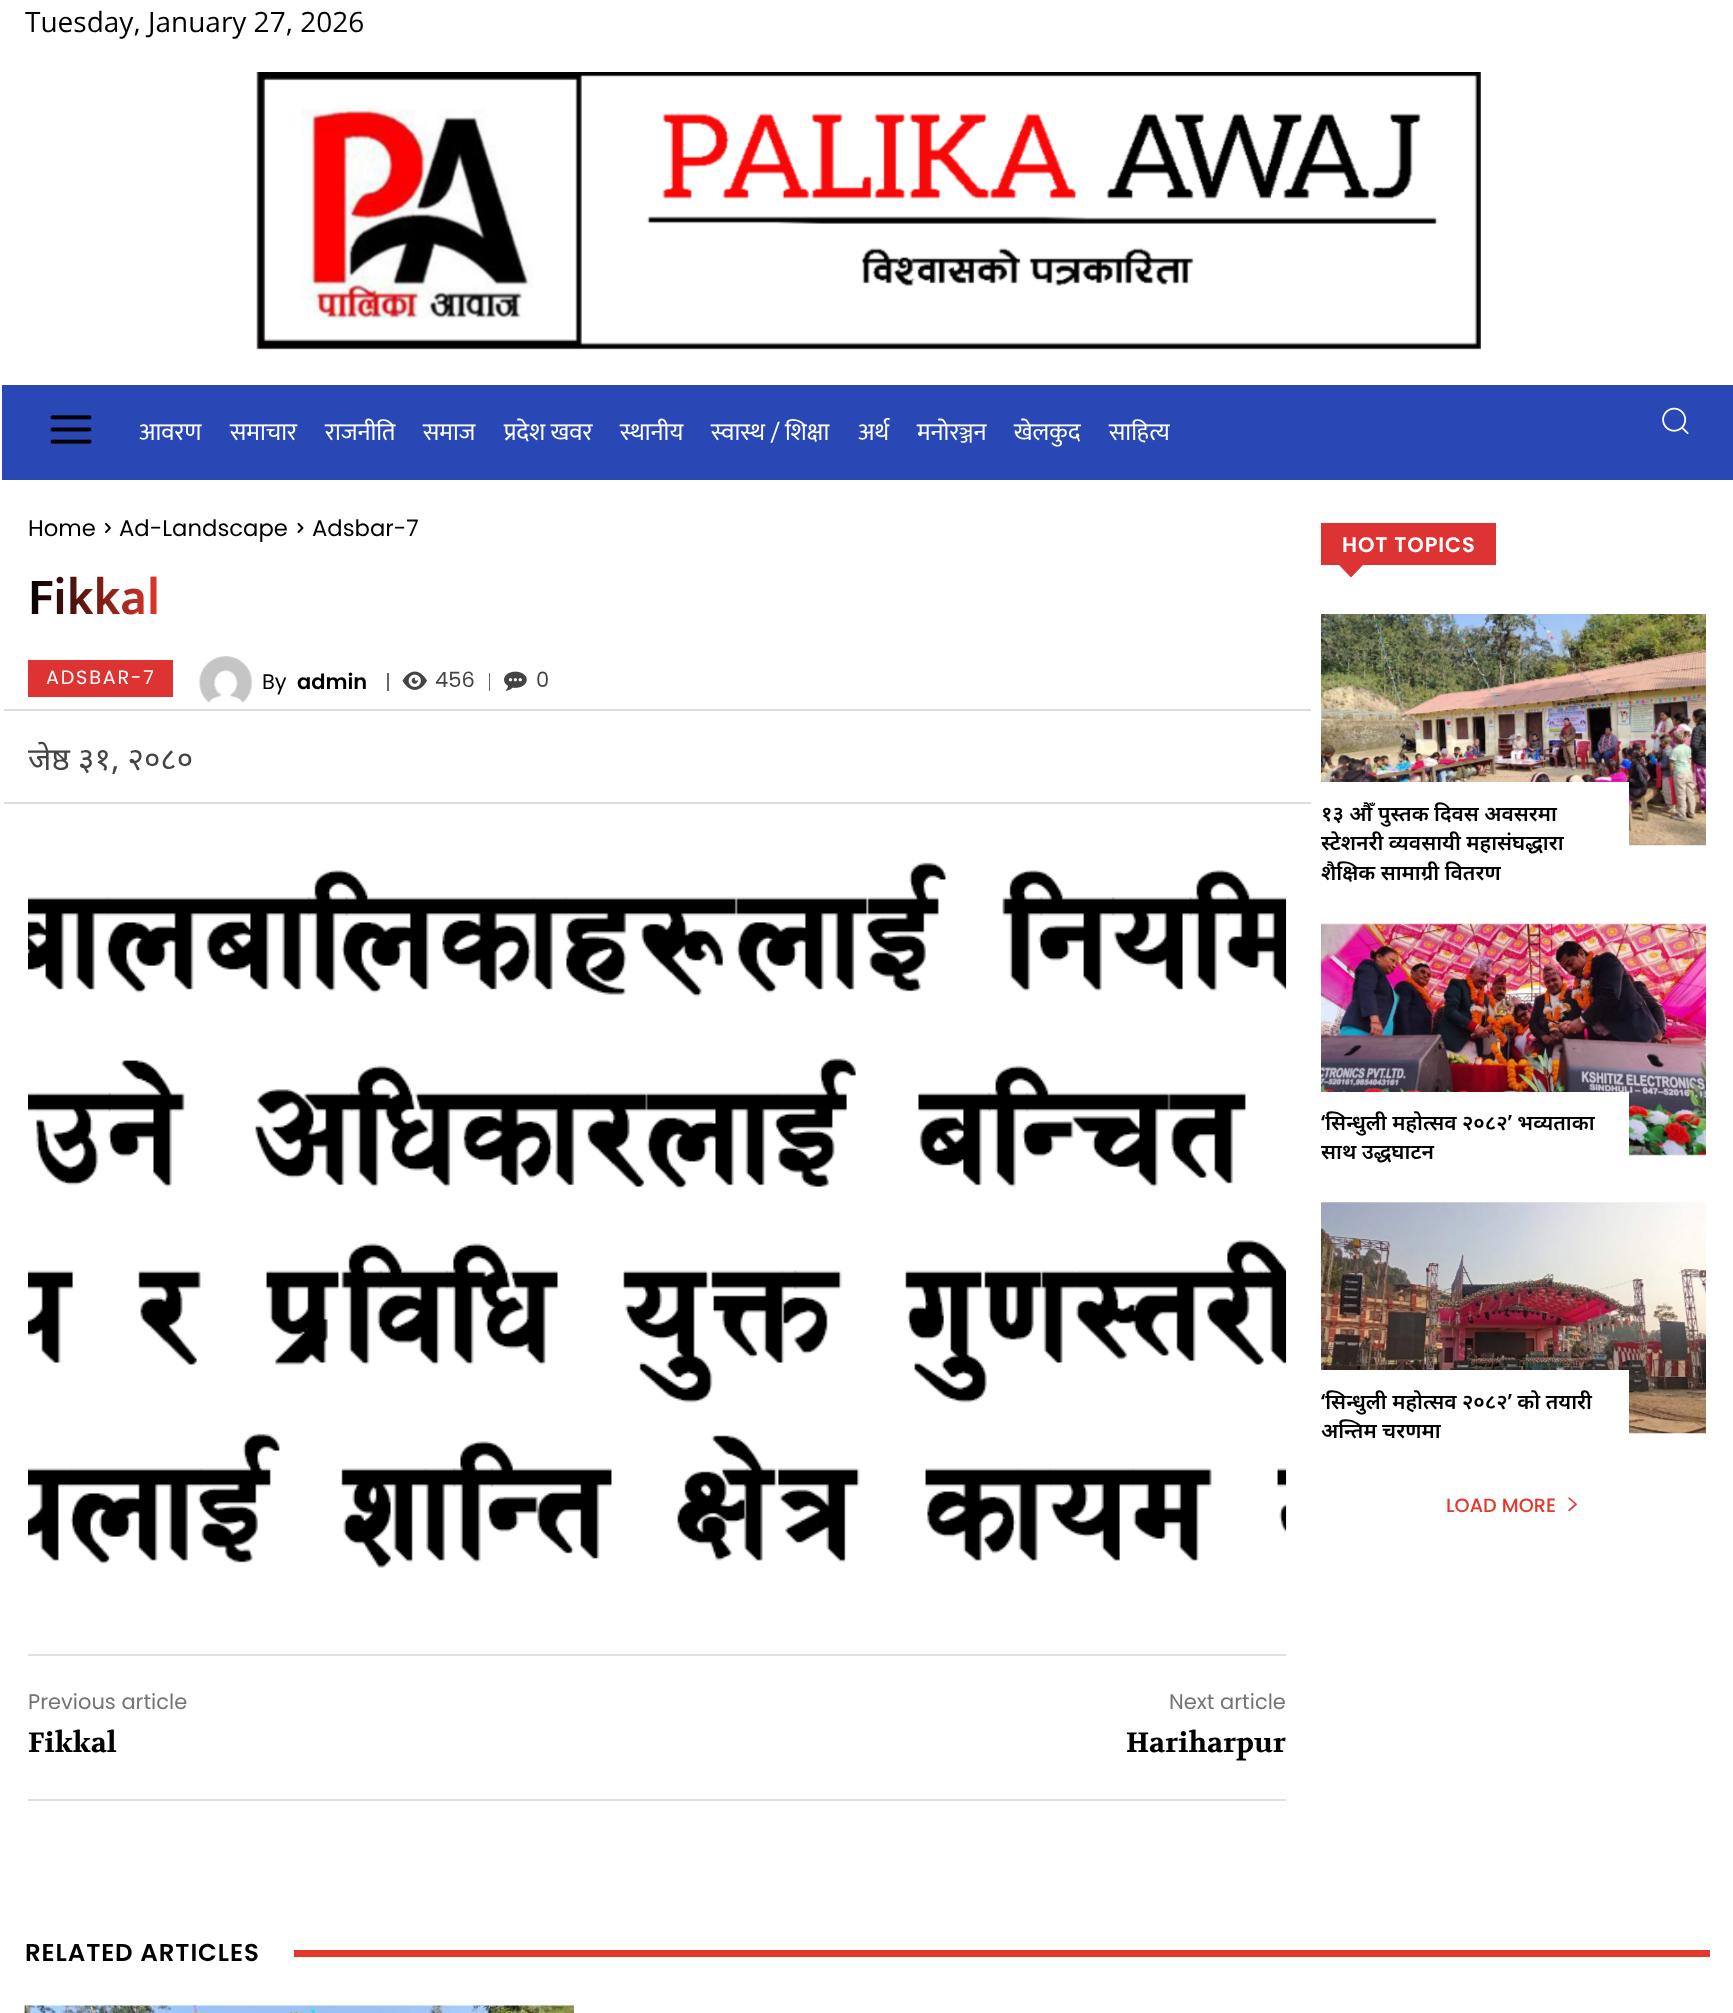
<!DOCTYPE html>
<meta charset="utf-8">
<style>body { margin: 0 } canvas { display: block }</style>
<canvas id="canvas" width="1733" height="2013"></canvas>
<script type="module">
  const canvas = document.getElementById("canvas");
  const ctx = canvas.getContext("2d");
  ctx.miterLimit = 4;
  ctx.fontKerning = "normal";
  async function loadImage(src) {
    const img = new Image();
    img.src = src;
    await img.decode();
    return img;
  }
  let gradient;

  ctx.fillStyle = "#ffffff";
  ctx.fillRect(0, 0, 1733, 2013);
  ctx.font = "28px Open Sans";
  ctx.fillStyle = "#000000";
  ctx.fillText("Tuesday, January 27, 2026", 25, 32);
  ctx.drawImage(await loadImage("img1.png"), 256, 72, 1225, 278);
  ctx.fillStyle = "#2947b5";
  ctx.fillRect(2, 385, 1731, 95);
  ctx.drawImage(await loadImage("img2.png"), 50, 415, 42, 29);
  ctx.font = "24.5px Mukta";
  ctx.fillStyle = "#ffffff";
  ctx.fillText("आवरण", 139, 440);
  ctx.fillText("समाचार", 230, 440);
  ctx.fillText("राजनीति", 325, 440);
  ctx.fillText("समाज", 423, 440);
  ctx.fillText("प्रदेश खवर", 504, 440);
  ctx.fillText("स्थानीय", 620, 440);
  ctx.fillText("स्वास्थ / शिक्षा", 711, 440);
  ctx.fillText("अर्थ", 858, 440);
  ctx.fillText("मनोरञ्जन", 917, 440);
  ctx.fillText("खेलकुद", 1014, 440);
  ctx.fillText("साहित्य", 1109, 440);
  ctx.drawImage(await loadImage("img3.png"), 1662, 407, 27, 28);
  ctx.font = "22.75px Poppins";
  ctx.fillStyle = "#000000";
  ctx.fillText("Home", 28, 536);
  ctx.drawImage(await loadImage("img4.png"), 105, 522, 6, 11);
  ctx.fillText("Ad-Landscape", 119, 536);
  ctx.drawImage(await loadImage("img5.png"), 297, 522, 7, 12);
  ctx.fillText("Adsbar-7", 312, 536);
  ctx.font = "600 52.5px Mukta";
  gradient = ctx.createLinearGradient(160, 599, 28, 599);
  gradient.addColorStop(0, "#e3382b");
  gradient.addColorStop(1, "#000000");
  ctx.fillStyle = gradient;
  ctx.fillText("Fikkal", 28, 614);
  ctx.fillStyle = "#dd3333";
  ctx.fillRect(28, 660, 145, 37);
  ctx.letterSpacing = "1.75px";
  ctx.font = "19.25px Poppins";
  ctx.fillStyle = "#ffffff";
  ctx.fillText("ADSBAR-7", 46, 684);
  ctx.drawImage(await loadImage("img6.png"), 199, 656, 54, 47);
  ctx.letterSpacing = "0px";
  ctx.font = "21px Poppins";
  ctx.fillStyle = "#000000";
  ctx.fillText("By", 262, 689);
  ctx.font = "600 21px Poppins";
  ctx.fillText("admin", 297, 689);
  ctx.fillStyle = "#666666";
  ctx.fillRect(387, 673, 2, 18);
  ctx.drawImage(await loadImage("img7.png"), 402, 671, 25, 19);
  ctx.font = "21px Poppins";
  ctx.fillStyle = "#444444";
  ctx.fillText("456", 435, 687);
  ctx.fillStyle = "#666666";
  ctx.fillRect(489, 673, 1, 18);
  ctx.drawImage(await loadImage("img8.png"), 504, 671, 23, 20);
  ctx.fillStyle = "#444444";
  ctx.fillText("0", 536, 687);
  ctx.fillStyle = "#dddddd";
  ctx.fillRect(4, 709, 1307, 2);
  ctx.fillRect(4, 802, 1307, 2);
  ctx.font = "31.5px Noto Sans";
  ctx.fillStyle = "#444444";
  ctx.fillText("जेष्ठ ३१, २०८०", 28, 770);
  ctx.drawImage(await loadImage("img9.png"), 28, 862, 1259, 706);
  ctx.fillStyle = "#e0e0e0";
  ctx.fillRect(28, 1654, 1258, 2);
  ctx.fillRect(28, 1799, 1258, 2);
  ctx.font = "21px Poppins";
  ctx.fillStyle = "#747474";
  ctx.fillText("Previous article", 28, 1709);
  ctx.font = "bold 28px Volkhov";
  ctx.fillStyle = "#000000";
  ctx.fillText("Fikkal", 28, 1752);
  ctx.font = "21px Poppins";
  ctx.fillStyle = "#747474";
  ctx.fillText("Next article", 1169, 1709);
  ctx.font = "bold 28px Volkhov";
  ctx.fillStyle = "#000000";
  ctx.fillText("Hariharpur", 1126, 1752);
  ctx.fillStyle = "#dd3333";
  ctx.fillRect(1321, 523, 175, 42);
  ctx.letterSpacing = "0.9px";
  ctx.font = "600 21px Poppins";
  ctx.fillStyle = "#ffffff";
  ctx.fillText("HOT TOPICS", 1342, 552);
  ctx.fillStyle = "#dd3333";
  ctx.beginPath();
  ctx.moveTo(1339, 565);
  ctx.lineTo(1363, 565);
  ctx.lineTo(1351, 577.5);
  ctx.closePath();
  ctx.fill();
  ctx.drawImage(await loadImage("img10.png"), 1321, 614, 385, 232);
  ctx.fillStyle = "#ffffff";
  ctx.fillRect(1321, 782, 308, 64);
  ctx.letterSpacing = "0px";
  ctx.font = "600 21px Noto Sans";
  ctx.fillStyle = "#000000";
  ctx.fillText("१३ औँ पुस्तक दिवस अवसरमा", 1321, 821);
  ctx.fillText("स्टेशनरी व्यवसायी महासंघद्धारा", 1321, 850);
  ctx.fillText("शैक्षिक सामाग्री वितरण", 1321, 880);
  ctx.drawImage(await loadImage("img11.png"), 1321, 923, 385, 233);
  ctx.fillStyle = "#ffffff";
  ctx.fillRect(1321, 1092, 308, 64);
  ctx.fillStyle = "#000000";
  ctx.fillText("‘सिन्धुली महोत्सव २०८२’ भव्यताका", 1321, 1130);
  ctx.fillText("साथ उद्धघाटन", 1321, 1159);
  ctx.drawImage(await loadImage("img12.png"), 1321, 1202, 385, 232);
  ctx.fillStyle = "#ffffff";
  ctx.fillRect(1321, 1370, 308, 64);
  ctx.fillStyle = "#000000";
  ctx.fillText("‘सिन्धुली महोत्सव २०८२’ को तयारी", 1321, 1409);
  ctx.fillText("अन्तिम चरणमा", 1321, 1438);
  ctx.font = "500 19.25px Poppins";
  ctx.fillStyle = "#e3382b";
  ctx.fillText("LOAD MORE", 1446, 1512);
  ctx.drawImage(await loadImage("img13.png"), 1568, 1497, 9, 15);
  ctx.letterSpacing = "0.9px";
  ctx.font = "600 24.5px Poppins";
  ctx.fillStyle = "#000000";
  ctx.fillText("RELATED ARTICLES", 25, 1961);
  ctx.fillStyle = "#e3382b";
  ctx.fillRect(294, 1950, 1416, 7);
  ctx.drawImage(await loadImage("img14.png"), 24, 2005, 550, 8);
</script>
